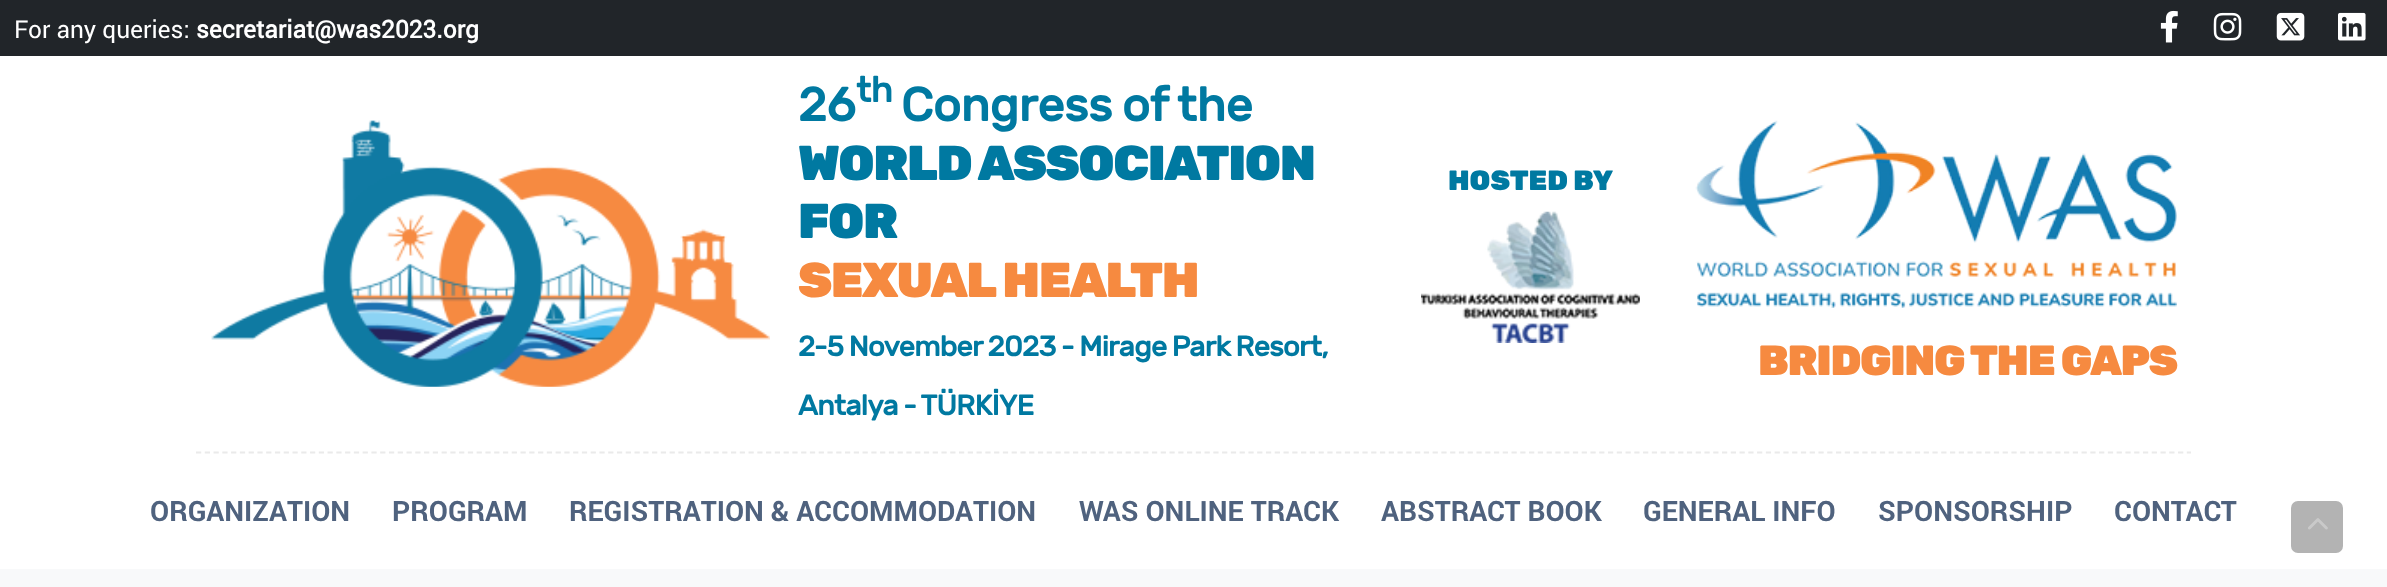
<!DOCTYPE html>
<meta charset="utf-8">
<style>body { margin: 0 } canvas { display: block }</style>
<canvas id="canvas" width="2387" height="587"></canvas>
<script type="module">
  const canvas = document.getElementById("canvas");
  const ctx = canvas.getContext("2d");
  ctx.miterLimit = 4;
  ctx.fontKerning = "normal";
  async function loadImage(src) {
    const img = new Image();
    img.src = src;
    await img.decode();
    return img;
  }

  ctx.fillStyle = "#f8f9fa";
  ctx.fillRect(0, 0, 2387, 587);
  ctx.fillStyle = "#ffffff";
  ctx.fillRect(0, 56, 2387, 513);
  ctx.fillStyle = "#212529";
  ctx.fillRect(0, 0, 2387, 56);
  ctx.font = "24.5px Roboto";
  ctx.fillStyle = "#ffffff";
  ctx.fillText("For any queries:", 14, 38);
  ctx.font = "bold 24.5px Roboto";
  ctx.fillText("secretariat@was2023.org", 196, 38);
  ctx.drawImage(await loadImage("img1.png"), 2160, 10, 18, 33);
  ctx.drawImage(await loadImage("img2.png"), 2213, 12, 29, 29);
  ctx.drawImage(await loadImage("img3.png"), 2276, 12, 29, 29);
  ctx.drawImage(await loadImage("img4.png"), 2338, 12, 28, 29);
  ctx.beginPath();
  ctx.moveTo(196, 452.5);
  ctx.lineTo(2191, 452.5);
  ctx.strokeStyle = "#eaeaea";
  ctx.lineWidth = 1.8;
  ctx.setLineDash([5.25, 3.52]);
  ctx.stroke();
  ctx.drawImage(await loadImage("img5.png"), 211, 120, 559, 267);
  ctx.letterSpacing = "-1.4px";
  ctx.font = "500 49px Rubik";
  ctx.fillStyle = "#0079a1";
  ctx.fillText("26", 798, 121);
  ctx.font = "500 37px Rubik";
  ctx.fillText("th", 856, 102);
  ctx.font = "500 49px Rubik";
  ctx.fillText("Congress of the", 901, 121);
  ctx.font = "900 49px Rubik";
  ctx.fillText("WORLD ASSOCIATION", 798, 180);
  ctx.fillText("FOR", 798, 238);
  ctx.fillStyle = "#f68a40";
  ctx.fillText("SEXUAL HEALTH", 798, 297);
  ctx.font = "500 29.4px Rubik";
  ctx.fillStyle = "#0079a1";
  ctx.fillText("2-5 November 2023 - Mirage Park Resort,", 798, 356);
  ctx.fillText("Antalya - TÜRKİYE", 798, 415);
  ctx.letterSpacing = "0px";
  ctx.font = "900 28px Rubik";
  ctx.fillText("HOSTED BY", 1448, 190);
  ctx.drawImage(await loadImage("img6.png"), 1421, 211, 219, 132);
  ctx.drawImage(await loadImage("img7.png"), 1695, 120, 482, 188);
  ctx.letterSpacing = "-1.4px";
  ctx.font = "900 42px Rubik";
  ctx.fillStyle = "#f68a40";
  ctx.fillText("BRIDGING THE GAPS", 1758, 375);
  ctx.letterSpacing = "0px";
  ctx.font = "bold 28px 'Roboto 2'";
  ctx.fillStyle = "#4f627e";
  ctx.fillText("ORGANIZATION", 150, 521);
  ctx.fillText("PROGRAM", 392, 521);
  ctx.fillText("REGISTRATION & ACCOMMODATION", 569, 521);
  ctx.fillText("WAS ONLINE TRACK", 1079, 521);
  ctx.fillText("ABSTRACT BOOK", 1381, 521);
  ctx.fillText("GENERAL INFO", 1643, 521);
  ctx.fillText("SPONSORSHIP", 1878, 521);
  ctx.fillText("CONTACT", 2114, 521);
  ctx.fillStyle = "#b3b3b3";
  ctx.beginPath();
  ctx.roundRect(2291, 501, 52, 52, 7);
  ctx.fill();
  ctx.drawImage(await loadImage("img8.png"), 2308, 518, 20, 12);
</script>
